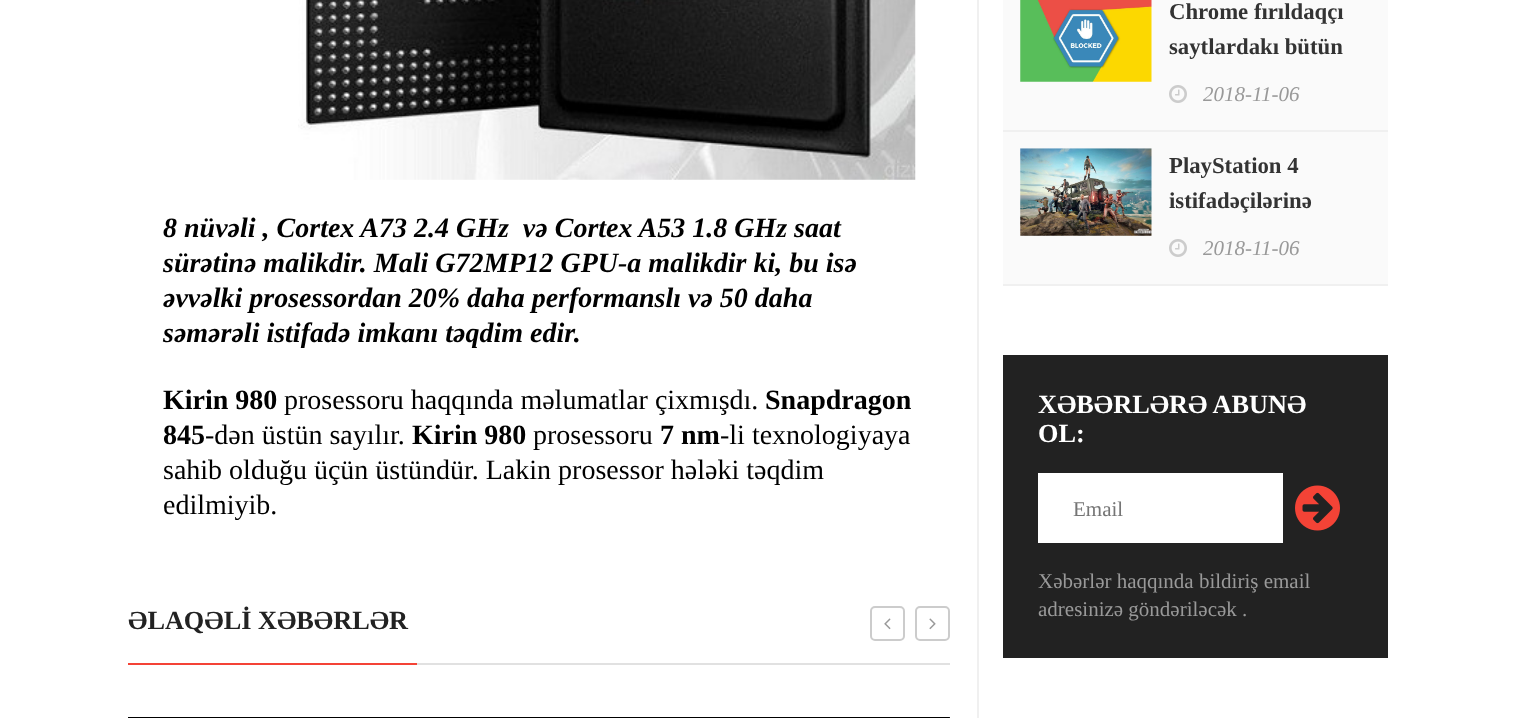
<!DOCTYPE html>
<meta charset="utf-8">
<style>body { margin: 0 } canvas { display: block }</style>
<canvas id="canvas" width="1515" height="718"></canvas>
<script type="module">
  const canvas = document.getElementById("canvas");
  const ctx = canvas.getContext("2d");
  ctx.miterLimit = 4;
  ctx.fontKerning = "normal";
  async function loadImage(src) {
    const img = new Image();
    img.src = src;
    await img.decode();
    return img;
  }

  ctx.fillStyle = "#ffffff";
  ctx.fillRect(0, 0, 1515, 718);
  ctx.drawImage(await loadImage("img1.png"), 298, 0, 618, 180);
  ctx.font = "italic bold 28px Liberation Serif";
  ctx.fillStyle = "#000000";
  ctx.fillText("8 nüvəli , Cortex A73 2.4 GHz  və Cortex A53 1.8 GHz saat", 163, 237);
  ctx.fillText("sürətinə malikdir. Mali G72MP12 GPU-a malikdir ki, bu isə", 163, 272);
  ctx.fillText("əvvəlki prosessordan 20% daha performanslı və 50 daha", 163, 307);
  ctx.fillText("səmərəli istifadə imkanı təqdim edir.", 163, 342);
  ctx.font = "bold 28px Liberation Serif";
  ctx.fillText("Kirin 980", 163, 409);
  ctx.font = "28px Liberation Serif";
  ctx.fillText("prosessoru haqqında məlumatlar çixmışdı.", 284, 409);
  ctx.font = "bold 28px Liberation Serif";
  ctx.fillText("Snapdragon", 765, 409);
  ctx.fillText("845", 163, 444);
  ctx.font = "28px Liberation Serif";
  ctx.fillText("-dən üstün sayılır.", 205, 444);
  ctx.font = "bold 28px Liberation Serif";
  ctx.fillText("Kirin 980", 412, 444);
  ctx.font = "28px Liberation Serif";
  ctx.fillText("prosessoru", 533, 444);
  ctx.font = "bold 28px Liberation Serif";
  ctx.fillText("7 nm", 660, 444);
  ctx.font = "28px Liberation Serif";
  ctx.fillText("-li texnologiyaya", 720, 444);
  ctx.fillText("sahib olduğu üçün üstündür. Lakin prosessor hələki təqdim", 163, 479);
  ctx.fillText("edilmiyib.", 163, 514);
  ctx.fillStyle = "#e1e1e1";
  ctx.fillRect(417, 663, 533, 2);
  ctx.fillStyle = "#f44336";
  ctx.fillRect(128, 663, 289, 2);
  ctx.font = "bold 26.25px Liberation Serif";
  ctx.fillStyle = "#222222";
  ctx.fillText("ƏLAQƏLİ XƏBƏRLƏR", 128, 629);
  ctx.beginPath();
  ctx.roundRect(871, 607, 33, 33, 4);
  ctx.strokeStyle = "#cccccc";
  ctx.lineWidth = 2;
  ctx.stroke();
  ctx.drawImage(await loadImage("img2.png"), 884, 618, 7, 12);
  ctx.beginPath();
  ctx.roundRect(916, 607, 33, 33, 4);
  ctx.stroke();
  ctx.drawImage(await loadImage("img3.png"), 929, 618, 7, 12);
  ctx.drawImage(await loadImage("img4.png"), 128, 717, 822, 1);
  ctx.fillStyle = "#f0f0f0";
  ctx.fillRect(977, 0, 2, 718);
  ctx.fillStyle = "#fafafa";
  ctx.fillRect(1003, 0, 385, 284);
  ctx.fillStyle = "#f0f0f0";
  ctx.fillRect(1003, 130, 385, 2);
  ctx.drawImage(await loadImage("img5.png"), 1020, 0, 132, 82);
  ctx.font = "bold 22.75px Liberation Serif";
  ctx.fillStyle = "#333333";
  ctx.fillText("Chrome fırıldaqçı", 1169, 19);
  ctx.fillText("saytlardakı bütün", 1169, 54);
  ctx.drawImage(await loadImage("img6.png"), 1169, 85, 18, 18);
  ctx.font = "italic 21px Liberation Serif";
  ctx.fillStyle = "#999999";
  ctx.fillText("2018-11-06", 1203, 101);
  ctx.fillStyle = "#f0f0f0";
  ctx.fillRect(1003, 284, 385, 2);
  ctx.drawImage(await loadImage("img7.png"), 1020, 148, 132, 88);
  ctx.font = "bold 22.75px Liberation Serif";
  ctx.fillStyle = "#333333";
  ctx.fillText("PlayStation 4", 1169, 173);
  ctx.fillText("istifadəçilərinə", 1169, 208);
  ctx.drawImage(await loadImage("img8.png"), 1169, 239, 18, 18);
  ctx.font = "italic 21px Liberation Serif";
  ctx.fillStyle = "#999999";
  ctx.fillText("2018-11-06", 1203, 255);
  ctx.fillStyle = "#222222";
  ctx.fillRect(1003, 355, 385, 303);
  ctx.font = "bold 26.25px Liberation Serif";
  ctx.fillStyle = "#ffffff";
  ctx.fillText("XƏBƏRLƏRƏ ABUNƏ", 1038, 413);
  ctx.fillText("OL:", 1038, 442);
  ctx.fillRect(1038, 473, 245, 70);
  ctx.font = "21px Liberation Serif";
  ctx.fillStyle = "#757575";
  ctx.fillText("Email", 1073, 516);
  ctx.drawImage(await loadImage("img9.png"), 1295, 485, 45, 46);
  ctx.fillStyle = "#999999";
  ctx.fillText("Xəbərlər haqqında bildiriş email", 1038, 588);
  ctx.fillText("adresinizə göndəriləcək .", 1038, 616);
</script>
